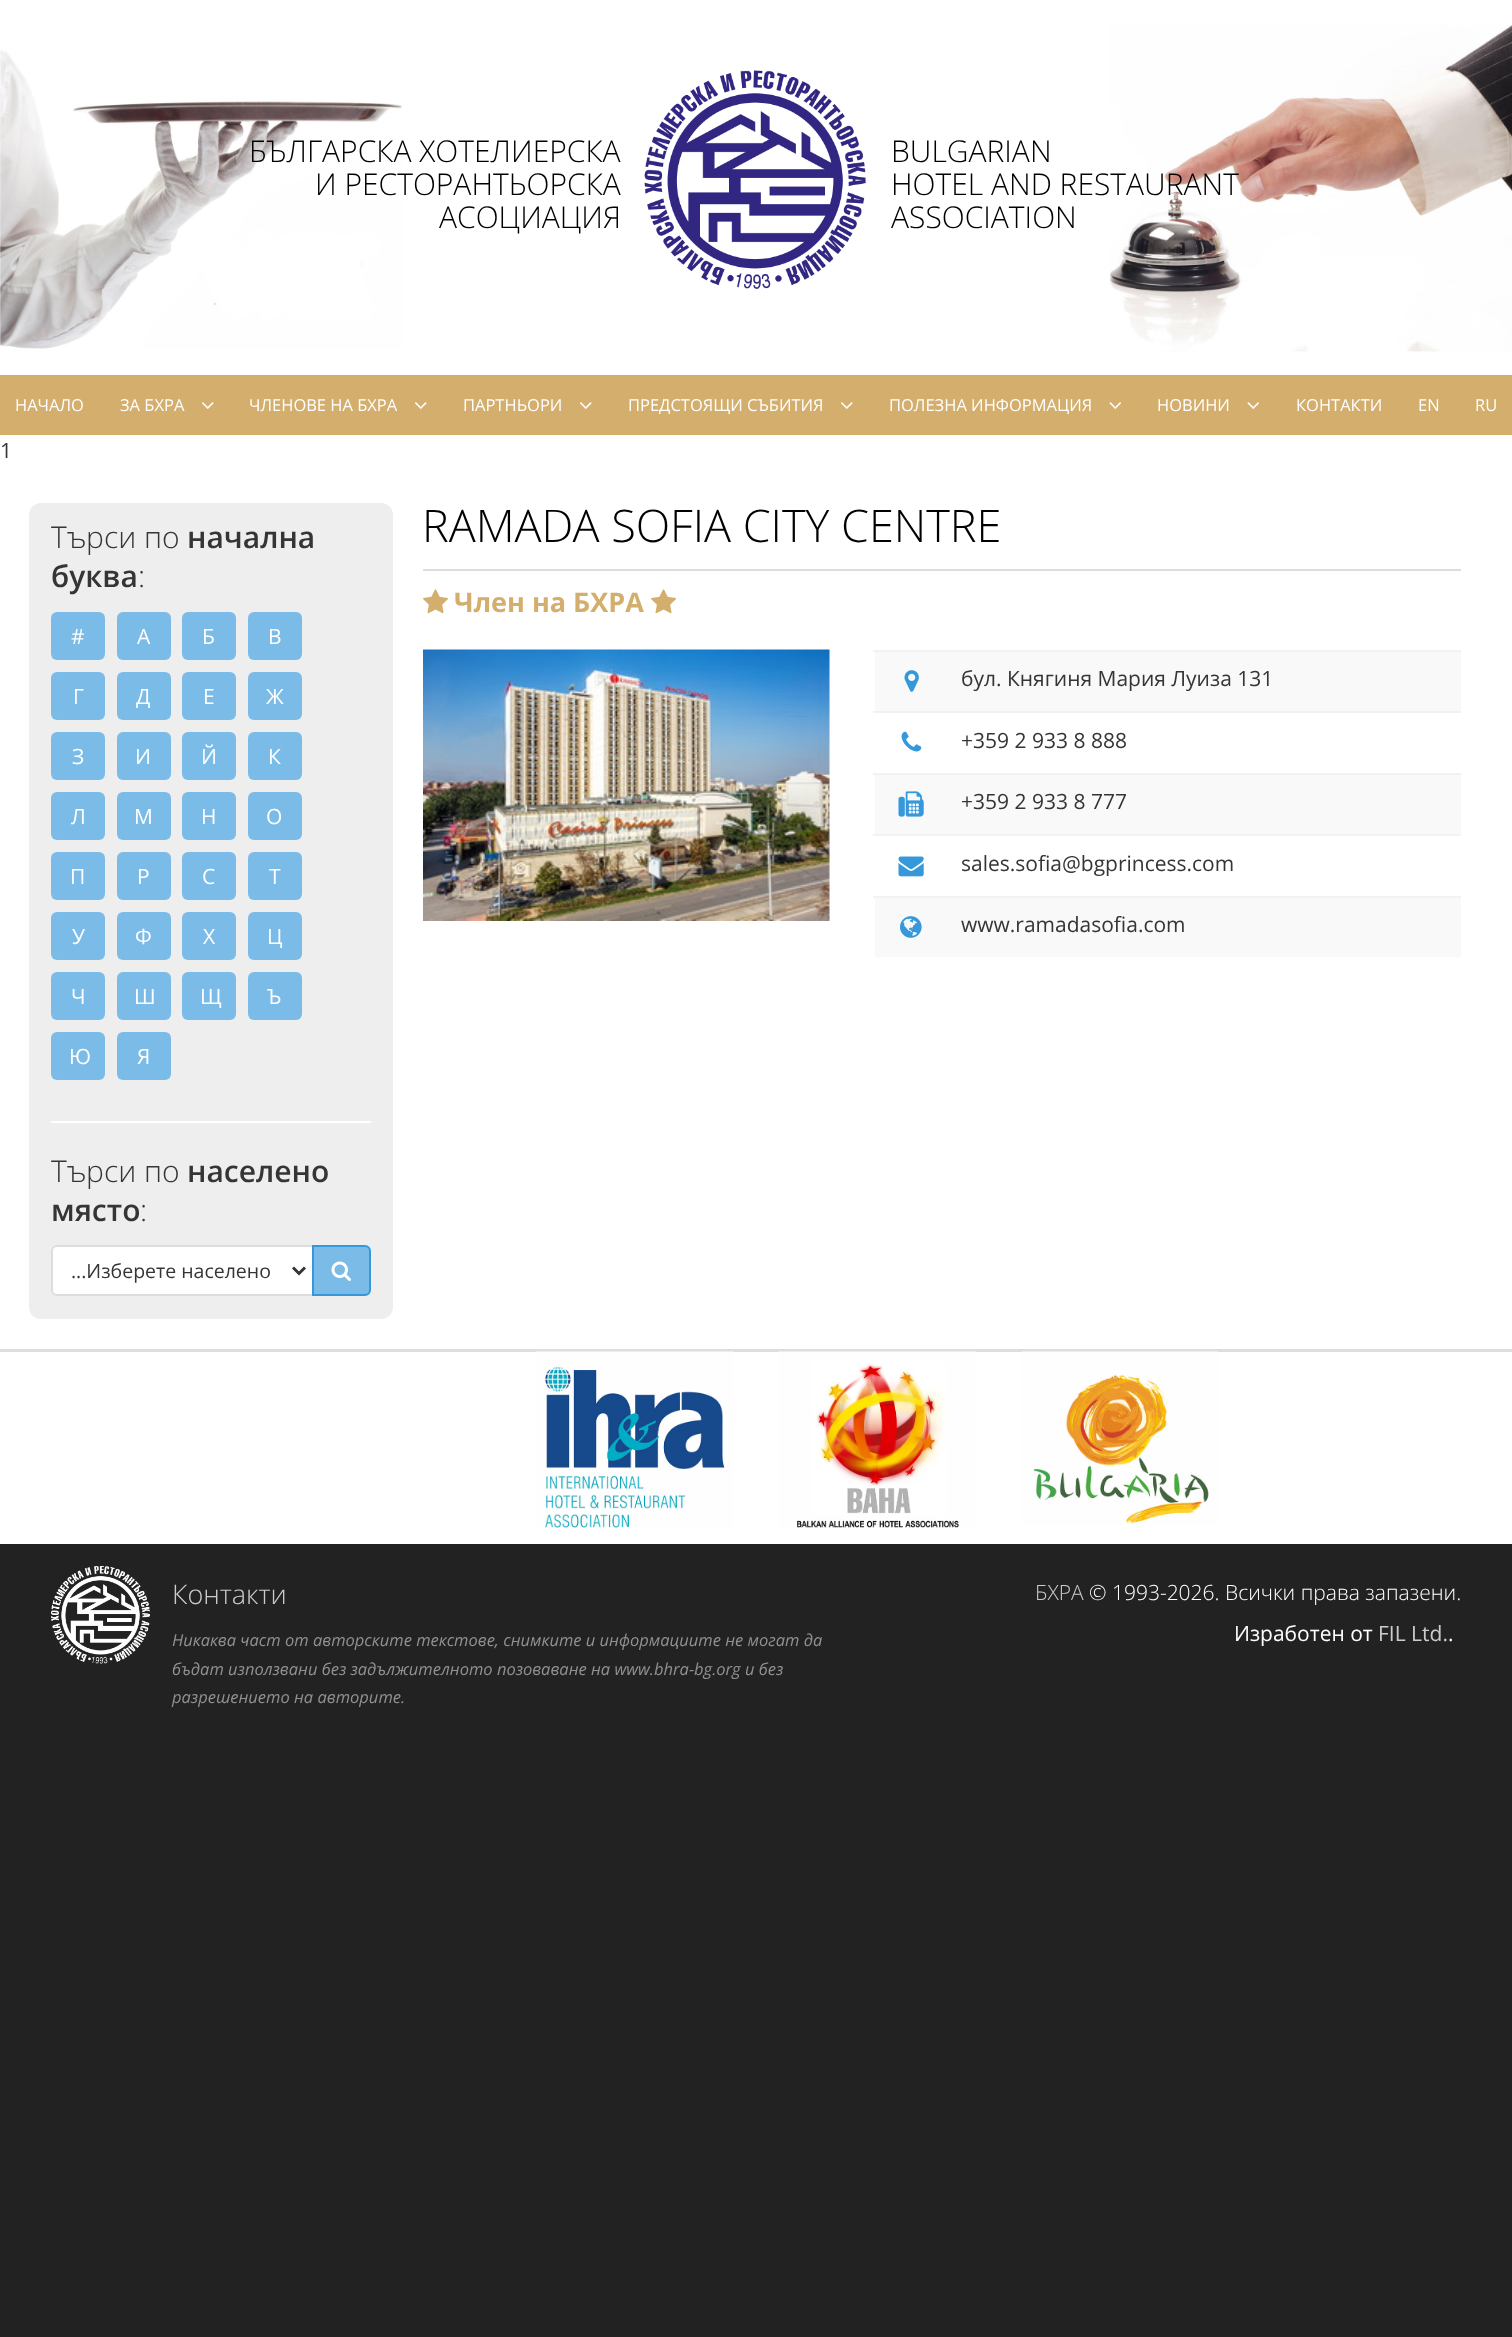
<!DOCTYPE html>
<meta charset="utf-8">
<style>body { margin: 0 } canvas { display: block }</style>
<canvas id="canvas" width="1512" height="2337"></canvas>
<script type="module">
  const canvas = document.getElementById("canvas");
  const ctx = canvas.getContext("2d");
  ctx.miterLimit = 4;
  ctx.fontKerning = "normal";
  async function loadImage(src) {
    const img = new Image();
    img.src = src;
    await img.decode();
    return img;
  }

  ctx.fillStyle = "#222222";
  ctx.fillRect(0, 0, 1512, 2337);
  ctx.fillStyle = "#ffffff";
  ctx.fillRect(0, 0, 1512, 1544);
  ctx.drawImage(await loadImage("img1.png"), 0, 49, 402, 300);
  ctx.drawImage(await loadImage("img2.png"), 1109, 25, 403, 327);
  ctx.font = "300 30px Open Sans";
  ctx.fillStyle = "#000000";
  ctx.fillText("БЪЛГАРСКА ХОТЕЛИЕРСКА", 249, 162);
  ctx.fillText("И РЕСТОРАНТЬОРСКА", 315, 195);
  ctx.fillText("АСОЦИАЦИЯ", 439, 228);
  ctx.drawImage(await loadImage("img3.png"), 644, 70, 222, 220);
  ctx.fillText("BULGARIAN", 891, 162);
  ctx.fillText("HOTEL AND RESTAURANT", 891, 195);
  ctx.fillText("ASSOCIATION", 891, 228);
  ctx.fillStyle = "#d4ae6d";
  ctx.fillRect(0, 375, 1512, 60);
  ctx.font = "16.5px Open Sans";
  ctx.fillStyle = "#ffffff";
  ctx.fillText("НАЧАЛО", 15, 411);
  ctx.fillText("ЗА БХРА", 120, 411);
  ctx.drawImage(await loadImage("img4.png"), 202, 402, 12, 7);
  ctx.fillText("ЧЛЕНОВЕ НА БХРА", 249, 411);
  ctx.drawImage(await loadImage("img4.png"), 415, 402, 12, 7);
  ctx.fillText("ПАРТНЬОРИ", 463, 411);
  ctx.drawImage(await loadImage("img4.png"), 580, 402, 12, 7);
  ctx.fillText("ПРЕДСТОЯЩИ СЪБИТИЯ", 628, 411);
  ctx.drawImage(await loadImage("img4.png"), 841, 402, 12, 7);
  ctx.fillText("ПОЛЕЗНА ИНФОРМАЦИЯ", 889, 411);
  ctx.drawImage(await loadImage("img5.png"), 1109, 402, 12, 7);
  ctx.fillText("НОВИНИ", 1157, 411);
  ctx.drawImage(await loadImage("img5.png"), 1247, 402, 12, 7);
  ctx.fillText("КОНТАКТИ", 1296, 411);
  ctx.fillText("EN", 1418, 411);
  ctx.fillText("RU", 1475, 411);
  ctx.font = "21px Open Sans";
  ctx.fillStyle = "#353535";
  ctx.fillText("1", 0, 458);
  ctx.fillStyle = "#eeeeee";
  ctx.beginPath();
  ctx.roundRect(29, 503, 364, 816, 12);
  ctx.fill();
  ctx.font = "300 30px Open Sans";
  ctx.fillStyle = "#353535";
  ctx.fillText("Търси по", 51, 548);
  ctx.font = "600 30px Open Sans";
  ctx.fillText("начална", 187, 548);
  ctx.fillText("буква", 51, 587);
  ctx.font = "300 30px Open Sans";
  ctx.fillText(":", 138, 587);
  ctx.fillStyle = "#7abce7";
  ctx.beginPath();
  ctx.roundRect(51, 612, 54, 48, 6);
  ctx.fill();
  ctx.font = "21px Open Sans";
  ctx.fillStyle = "#ffffff";
  ctx.fillText("#", 71, 644);
  ctx.fillStyle = "#7abce7";
  ctx.beginPath();
  ctx.roundRect(117, 612, 54, 48, 6);
  ctx.fill();
  ctx.fillStyle = "#ffffff";
  ctx.fillText("А", 137, 644);
  ctx.fillStyle = "#7abce7";
  ctx.beginPath();
  ctx.roundRect(182, 612, 54, 48, 6);
  ctx.fill();
  ctx.fillStyle = "#ffffff";
  ctx.fillText("Б", 202, 644);
  ctx.fillStyle = "#7abce7";
  ctx.beginPath();
  ctx.roundRect(248, 612, 54, 48, 6);
  ctx.fill();
  ctx.fillStyle = "#ffffff";
  ctx.fillText("В", 268, 644);
  ctx.fillStyle = "#7abce7";
  ctx.beginPath();
  ctx.roundRect(51, 672, 54, 48, 6);
  ctx.fill();
  ctx.fillStyle = "#ffffff";
  ctx.fillText("Г", 73, 704);
  ctx.fillStyle = "#7abce7";
  ctx.beginPath();
  ctx.roundRect(117, 672, 54, 48, 6);
  ctx.fill();
  ctx.fillStyle = "#ffffff";
  ctx.fillText("Д", 136, 704);
  ctx.fillStyle = "#7abce7";
  ctx.beginPath();
  ctx.roundRect(182, 672, 54, 48, 6);
  ctx.fill();
  ctx.fillStyle = "#ffffff";
  ctx.fillText("Е", 203, 704);
  ctx.fillStyle = "#7abce7";
  ctx.beginPath();
  ctx.roundRect(248, 672, 54, 48, 6);
  ctx.fill();
  ctx.fillStyle = "#ffffff";
  ctx.fillText("Ж", 266, 704);
  ctx.fillStyle = "#7abce7";
  ctx.beginPath();
  ctx.roundRect(51, 732, 54, 48, 6);
  ctx.fill();
  ctx.fillStyle = "#ffffff";
  ctx.fillText("З", 72, 764);
  ctx.fillStyle = "#7abce7";
  ctx.beginPath();
  ctx.roundRect(117, 732, 54, 48, 6);
  ctx.fill();
  ctx.fillStyle = "#ffffff";
  ctx.fillText("И", 135, 764);
  ctx.fillStyle = "#7abce7";
  ctx.beginPath();
  ctx.roundRect(182, 732, 54, 48, 6);
  ctx.fill();
  ctx.fillStyle = "#ffffff";
  ctx.fillText("Й", 201, 764);
  ctx.fillStyle = "#7abce7";
  ctx.beginPath();
  ctx.roundRect(248, 732, 54, 48, 6);
  ctx.fill();
  ctx.fillStyle = "#ffffff";
  ctx.fillText("К", 268, 764);
  ctx.fillStyle = "#7abce7";
  ctx.beginPath();
  ctx.roundRect(51, 792, 54, 48, 6);
  ctx.fill();
  ctx.fillStyle = "#ffffff";
  ctx.fillText("Л", 71, 824);
  ctx.fillStyle = "#7abce7";
  ctx.beginPath();
  ctx.roundRect(117, 792, 54, 48, 6);
  ctx.fill();
  ctx.fillStyle = "#ffffff";
  ctx.fillText("М", 134, 824);
  ctx.fillStyle = "#7abce7";
  ctx.beginPath();
  ctx.roundRect(182, 792, 54, 48, 6);
  ctx.fill();
  ctx.fillStyle = "#ffffff";
  ctx.fillText("Н", 201, 824);
  ctx.fillStyle = "#7abce7";
  ctx.beginPath();
  ctx.roundRect(248, 792, 54, 48, 6);
  ctx.fill();
  ctx.fillStyle = "#ffffff";
  ctx.fillText("О", 266, 824);
  ctx.fillStyle = "#7abce7";
  ctx.beginPath();
  ctx.roundRect(51, 852, 54, 48, 6);
  ctx.fill();
  ctx.fillStyle = "#ffffff";
  ctx.fillText("П", 70, 884);
  ctx.fillStyle = "#7abce7";
  ctx.beginPath();
  ctx.roundRect(117, 852, 54, 48, 6);
  ctx.fill();
  ctx.fillStyle = "#ffffff";
  ctx.fillText("Р", 137, 884);
  ctx.fillStyle = "#7abce7";
  ctx.beginPath();
  ctx.roundRect(182, 852, 54, 48, 6);
  ctx.fill();
  ctx.fillStyle = "#ffffff";
  ctx.fillText("С", 202, 884);
  ctx.fillStyle = "#7abce7";
  ctx.beginPath();
  ctx.roundRect(248, 852, 54, 48, 6);
  ctx.fill();
  ctx.fillStyle = "#ffffff";
  ctx.fillText("Т", 269, 884);
  ctx.fillStyle = "#7abce7";
  ctx.beginPath();
  ctx.roundRect(51, 912, 54, 48, 6);
  ctx.fill();
  ctx.fillStyle = "#ffffff";
  ctx.fillText("У", 72, 944);
  ctx.fillStyle = "#7abce7";
  ctx.beginPath();
  ctx.roundRect(117, 912, 54, 48, 6);
  ctx.fill();
  ctx.fillStyle = "#ffffff";
  ctx.fillText("Ф", 135, 944);
  ctx.fillStyle = "#7abce7";
  ctx.beginPath();
  ctx.roundRect(182, 912, 54, 48, 6);
  ctx.fill();
  ctx.fillStyle = "#ffffff";
  ctx.fillText("Х", 203, 944);
  ctx.fillStyle = "#7abce7";
  ctx.beginPath();
  ctx.roundRect(248, 912, 54, 48, 6);
  ctx.fill();
  ctx.fillStyle = "#ffffff";
  ctx.fillText("Ц", 267, 944);
  ctx.fillStyle = "#7abce7";
  ctx.beginPath();
  ctx.roundRect(51, 972, 54, 48, 6);
  ctx.fill();
  ctx.fillStyle = "#ffffff";
  ctx.fillText("Ч", 71, 1004);
  ctx.fillStyle = "#7abce7";
  ctx.beginPath();
  ctx.roundRect(117, 972, 54, 48, 6);
  ctx.fill();
  ctx.fillStyle = "#ffffff";
  ctx.fillText("Ш", 134, 1004);
  ctx.fillStyle = "#7abce7";
  ctx.beginPath();
  ctx.roundRect(182, 972, 54, 48, 6);
  ctx.fill();
  ctx.fillStyle = "#ffffff";
  ctx.fillText("Щ", 200, 1004);
  ctx.fillStyle = "#7abce7";
  ctx.beginPath();
  ctx.roundRect(248, 972, 54, 48, 6);
  ctx.fill();
  ctx.fillStyle = "#ffffff";
  ctx.fillText("Ъ", 267, 1004);
  ctx.fillStyle = "#7abce7";
  ctx.beginPath();
  ctx.roundRect(51, 1032, 54, 48, 6);
  ctx.fill();
  ctx.fillStyle = "#ffffff";
  ctx.fillText("Ю", 69, 1064);
  ctx.fillStyle = "#7abce7";
  ctx.beginPath();
  ctx.roundRect(117, 1032, 54, 48, 6);
  ctx.fill();
  ctx.fillStyle = "#ffffff";
  ctx.fillText("Я", 137, 1064);
  ctx.fillRect(51, 1121, 320, 2);
  ctx.font = "300 30px Open Sans";
  ctx.fillStyle = "#353535";
  ctx.fillText("Търси по", 51, 1182);
  ctx.font = "600 30px Open Sans";
  ctx.fillText("населено", 187, 1182);
  ctx.fillText("място", 51, 1221);
  ctx.font = "300 30px Open Sans";
  ctx.fillText(":", 140, 1221);
  ctx.fillStyle = "#ffffff";
  ctx.beginPath();
  ctx.roundRect(52, 1246, 261, 49, [5, 0, 0, 5]);
  ctx.fill();
  ctx.strokeStyle = "#dddddd";
  ctx.lineWidth = 2;
  ctx.stroke();
  ctx.beginPath();
  ctx.moveTo(293, 1267.5);
  ctx.lineTo(299, 1273.5);
  ctx.lineTo(305, 1267.5);
  ctx.strokeStyle = "#353535";
  ctx.lineWidth = 3;
  ctx.stroke();
  ctx.font = "19.5px Open Sans";
  ctx.fillStyle = "#353535";
  ctx.fillText("...Изберете населено", 71, 1278);
  ctx.fillStyle = "#7abce7";
  ctx.beginPath();
  ctx.roundRect(313, 1246, 57, 49, [0, 5, 5, 0]);
  ctx.fill();
  ctx.strokeStyle = "#3498db";
  ctx.lineWidth = 2;
  ctx.stroke();
  ctx.drawImage(await loadImage("img6.png"), 331, 1261, 20, 20);
  ctx.fillStyle = "#dddddd";
  ctx.fillRect(423, 569, 1038, 2);
  ctx.font = "300 45px 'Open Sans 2'";
  ctx.fillStyle = "#000000";
  ctx.fillText("RAMADA SOFIA CITY CENTRE", 422, 542);
  ctx.drawImage(await loadImage("img7.png"), 423, 589, 25, 25);
  ctx.font = "bold 27px Open Sans";
  ctx.fillStyle = "#d4ae6d";
  ctx.fillText("Член на БХРА", 454, 612);
  ctx.drawImage(await loadImage("img7.png"), 651, 589, 25, 25);
  ctx.drawImage(await loadImage("img8.png"), 423, 649, 407, 272);
  ctx.fillStyle = "#f9f9f9";
  ctx.fillRect(875, 652, 586, 59);
  ctx.drawImage(await loadImage("img9.png"), 904, 670, 15, 22);
  ctx.fillStyle = "#f2f2f2";
  ctx.fillRect(873, 650, 588, 2);
  ctx.font = "21px Open Sans";
  ctx.fillStyle = "#353535";
  ctx.fillText("бул. Княгиня Мария Луиза 131", 961, 686);
  ctx.drawImage(await loadImage("img10.png"), 901, 731, 21, 21);
  ctx.fillStyle = "#f2f2f2";
  ctx.fillRect(873, 711, 588, 2);
  ctx.fillStyle = "#353535";
  ctx.fillText("+359 2 933 8 888", 961, 748);
  ctx.fillStyle = "#f9f9f9";
  ctx.fillRect(875, 775, 586, 59);
  ctx.drawImage(await loadImage("img11.png"), 898, 791, 26, 26);
  ctx.fillStyle = "#f2f2f2";
  ctx.fillRect(873, 773, 588, 2);
  ctx.fillStyle = "#353535";
  ctx.fillText("+359 2 933 8 777", 961, 809);
  ctx.drawImage(await loadImage("img12.png"), 898, 856, 26, 21);
  ctx.fillStyle = "#f2f2f2";
  ctx.fillRect(873, 834, 588, 2);
  ctx.fillStyle = "#353535";
  ctx.fillText("sales.sofia@bgprincess.com", 961, 871);
  ctx.fillStyle = "#f9f9f9";
  ctx.fillRect(875, 898, 586, 59);
  ctx.drawImage(await loadImage("img13.png"), 900, 916, 22, 22);
  ctx.fillStyle = "#f2f2f2";
  ctx.fillRect(873, 896, 588, 2);
  ctx.fillStyle = "#353535";
  ctx.fillText("www.ramadasofia.com", 961, 932);
  ctx.fillStyle = "#dddddd";
  ctx.fillRect(0, 1349, 1512, 3);
  ctx.drawImage(await loadImage("img14.png"), 535, 1351, 199, 177);
  ctx.drawImage(await loadImage("img15.png"), 778, 1351, 199, 177);
  ctx.drawImage(await loadImage("img16.png"), 1021, 1351, 197, 174);
  ctx.drawImage(await loadImage("img17.png"), 51, 1566, 99, 98);
  ctx.font = "300 27px Open Sans";
  ctx.fillStyle = "#cccccc";
  ctx.fillText("Контакти", 172, 1604);
  ctx.font = "italic 16.5px Open Sans";
  ctx.fillStyle = "#919191";
  ctx.fillText("Никаква част от авторските текстове, снимките и информациите не могат да", 172, 1646);
  ctx.fillText("бъдат използвани без задължителното позоваване на www.bhra-bg.org и без", 172, 1675);
  ctx.fillText("разрешението на авторите.", 172, 1703);
  ctx.font = "300 21px Open Sans";
  ctx.fillStyle = "#cccccc";
  ctx.fillText("БХРА", 1035, 1600);
  ctx.fillStyle = "#ffffff";
  ctx.fillText("© 1993-2026. Всички права запазени.", 1089, 1600);
  ctx.font = "21px Open Sans";
  ctx.fillText("Изработен от", 1234, 1641);
  ctx.fillStyle = "#cccccc";
  ctx.fillText("FIL Ltd.", 1378, 1641);
  ctx.fillStyle = "#ffffff";
  ctx.fillText(".", 1448, 1641);
</script>
